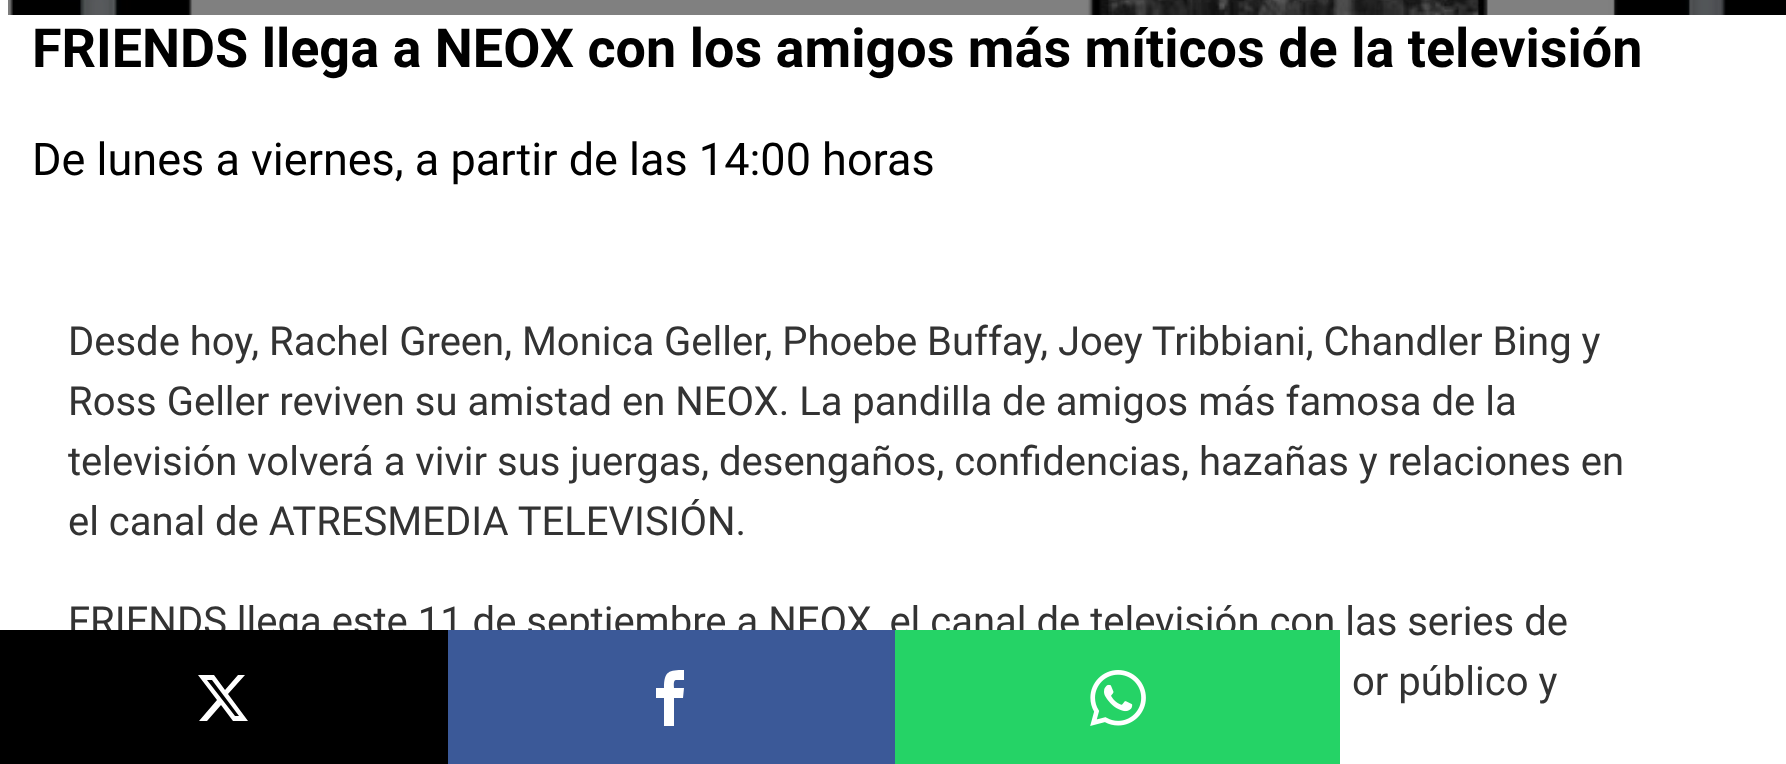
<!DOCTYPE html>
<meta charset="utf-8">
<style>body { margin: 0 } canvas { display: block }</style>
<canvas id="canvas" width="1786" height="764"></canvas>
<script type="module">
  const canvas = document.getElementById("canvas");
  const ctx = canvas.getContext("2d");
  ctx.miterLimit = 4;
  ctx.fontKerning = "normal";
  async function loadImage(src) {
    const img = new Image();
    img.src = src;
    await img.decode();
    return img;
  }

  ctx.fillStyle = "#ffffff";
  ctx.fillRect(0, 0, 1786, 764);
  ctx.drawImage(await loadImage("img1.png"), 8, 0, 1778, 15);
  ctx.font = "bold 53.9px Roboto";
  ctx.fillStyle = "#000000";
  ctx.fillText("FRIENDS llega a NEOX con los amigos más míticos de la televisión", 32, 67);
  ctx.font = "45px Roboto";
  ctx.fillText("De lunes a viernes, a partir de las 14:00 horas", 32, 175);
  ctx.font = "40px Roboto";
  ctx.fillStyle = "#333333";
  ctx.fillText("Desde hoy, Rachel Green, Monica Geller, Phoebe Buffay, Joey Tribbiani, Chandler Bing y", 68, 355);
  ctx.fillText("Ross Geller reviven su amistad en NEOX. La pandilla de amigos más famosa de la", 68, 415);
  ctx.fillText("televisión volverá a vivir sus juergas, desengaños, confidencias, hazañas y relaciones en", 68, 475);
  ctx.fillText("el canal de ATRESMEDIA TELEVISIÓN.", 68, 535);
  ctx.fillText("FRIENDS llega este 11 de septiembre a NEOX, el canal de televisión con las series de", 68, 635);
  ctx.fillText("or público y", 1352, 695);
  ctx.fillStyle = "#000000";
  ctx.fillRect(0, 630, 448, 134);
  ctx.fillStyle = "#ffffff";
  ctx.beginPath();
  ctx.moveTo(238, 675);
  ctx.lineTo(245, 675);
  ctx.lineTo(228, 694);
  ctx.lineTo(248, 721);
  ctx.lineTo(233, 721);
  ctx.lineTo(221, 705);
  ctx.lineTo(207, 721);
  ctx.lineTo(199, 721);
  ctx.lineTo(217, 700);
  ctx.lineTo(198, 675);
  ctx.lineTo(214, 675);
  ctx.lineTo(225, 690);
  ctx.closePath();
  ctx.moveTo(235, 716);
  ctx.lineTo(239, 716);
  ctx.lineTo(212, 680);
  ctx.lineTo(207, 680);
  ctx.closePath();
  ctx.fill();
  ctx.fillStyle = "#3b5998";
  ctx.fillRect(448, 630, 447, 134);
  ctx.fillStyle = "#ffffff";
  ctx.beginPath();
  ctx.moveTo(676, 680);
  ctx.lineTo(684, 680);
  ctx.lineTo(684, 670);
  ctx.bezierCurveTo(669, 670, 664, 671, 664, 688);
  ctx.lineTo(656, 688);
  ctx.lineTo(656, 698);
  ctx.lineTo(664, 698);
  ctx.lineTo(664, 726);
  ctx.lineTo(674, 726);
  ctx.lineTo(674, 698);
  ctx.lineTo(683, 698);
  ctx.lineTo(684, 688);
  ctx.lineTo(674, 688);
  ctx.bezierCurveTo(674, 686, 673, 680, 676, 680);
  ctx.closePath();
  ctx.fill();
  ctx.fillStyle = "#25d366";
  ctx.fillRect(895, 630, 445, 134);
  ctx.drawImage(await loadImage("img2.png"), 1090, 670, 56, 56);
</script>
